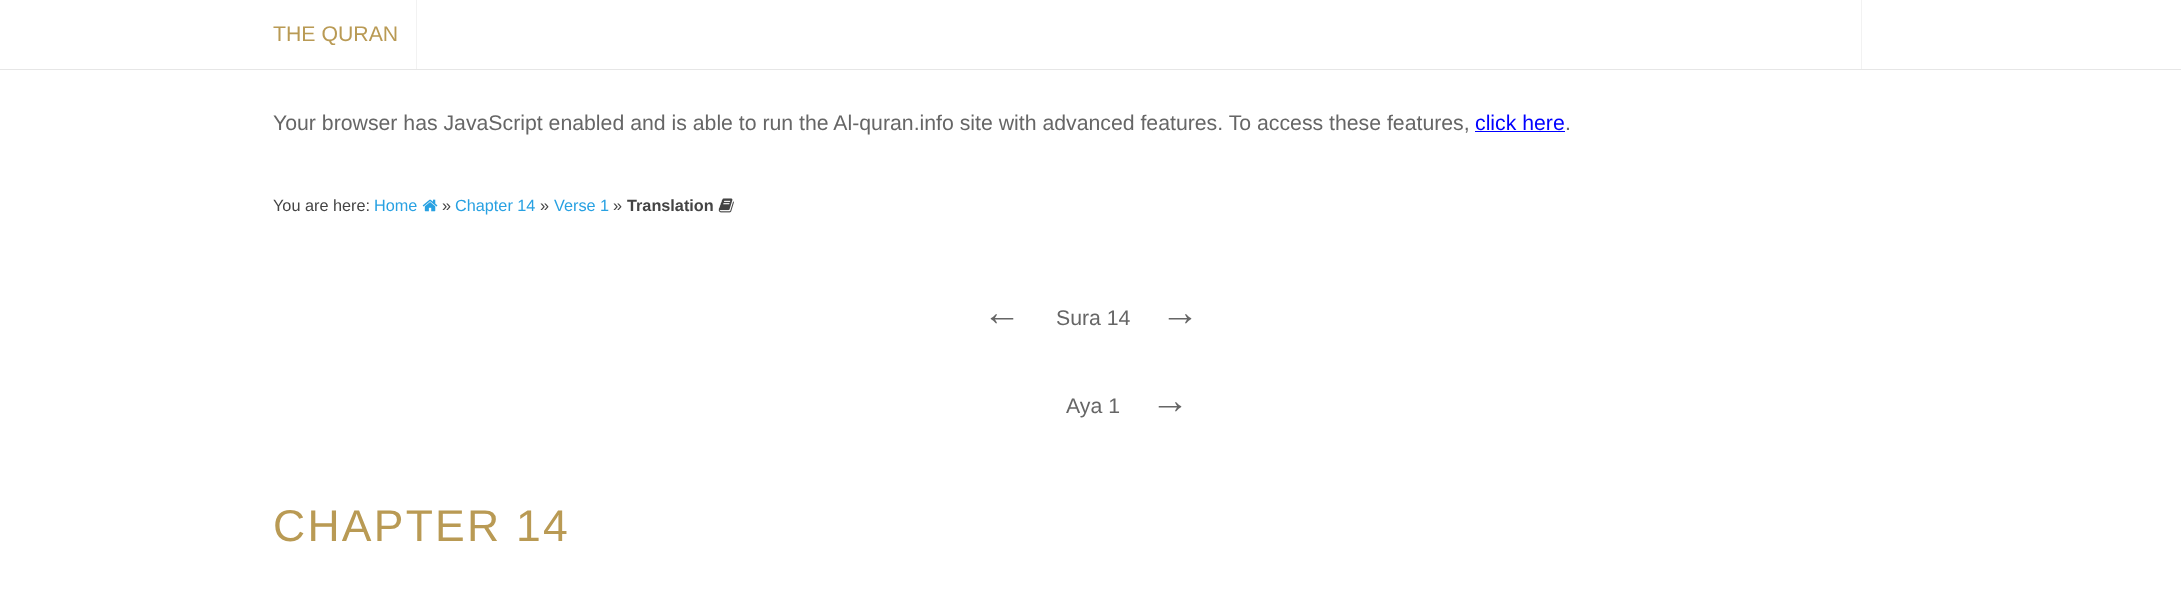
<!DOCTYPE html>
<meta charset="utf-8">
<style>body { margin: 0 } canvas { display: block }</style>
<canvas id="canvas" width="2181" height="615"></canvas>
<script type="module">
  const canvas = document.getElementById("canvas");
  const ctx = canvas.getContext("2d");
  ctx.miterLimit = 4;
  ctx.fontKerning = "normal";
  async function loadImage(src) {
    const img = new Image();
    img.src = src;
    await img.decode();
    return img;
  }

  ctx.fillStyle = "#ffffff";
  ctx.fillRect(0, 0, 2181, 615);
  ctx.fillStyle = "#e6e6e6";
  ctx.fillRect(0, 69, 2181, 1);
  ctx.fillStyle = "#f2f2f2";
  ctx.fillRect(416, 0, 1, 69);
  ctx.font = "21.25px Liberation Sans";
  ctx.fillStyle = "#b99a54";
  ctx.fillText("THE QURAN", 273, 41);
  ctx.fillStyle = "#f2f2f2";
  ctx.fillRect(1861, 0, 1, 69);
  ctx.fillStyle = "#666666";
  ctx.fillText("Your browser has JavaScript enabled and is able to run the Al-quran.info site with advanced features. To access these features,", 273, 130);
  ctx.fillStyle = "#0000ff";
  ctx.fillText("click here", 1475, 130);
  ctx.fillRect(1475, 131, 90, 1);
  ctx.fillStyle = "#666666";
  ctx.fillText(".", 1565, 130);
  ctx.font = "16.25px Liberation Sans";
  ctx.fillStyle = "#444444";
  ctx.fillText("You are here:", 273, 211);
  ctx.fillStyle = "#28a1e2";
  ctx.fillText("Home", 374, 211);
  ctx.drawImage(await loadImage("img1.png"), 422, 199, 16, 13);
  ctx.fillStyle = "#444444";
  ctx.fillText("»", 442, 211);
  ctx.fillStyle = "#28a1e2";
  ctx.fillText("Chapter 14", 455, 211);
  ctx.fillStyle = "#444444";
  ctx.fillText("»", 540, 211);
  ctx.fillStyle = "#28a1e2";
  ctx.fillText("Verse 1", 554, 211);
  ctx.fillStyle = "#444444";
  ctx.fillText("»", 613, 211);
  ctx.font = "bold 16.25px Liberation Sans";
  ctx.fillText("Translation", 627, 211);
  ctx.drawImage(await loadImage("img2.png"), 718, 198, 16, 15);
  ctx.font = "38px Liberation Sans";
  ctx.fillStyle = "#666666";
  ctx.fillText("←", 983, 325);
  ctx.font = "21.25px Liberation Sans";
  ctx.fillText("Sura 14", 1056, 325);
  ctx.font = "38px Liberation Sans";
  ctx.fillText("→", 1161, 325);
  ctx.font = "21.25px Liberation Sans";
  ctx.fillText("Aya 1", 1066, 413);
  ctx.font = "38px Liberation Sans";
  ctx.fillText("→", 1151, 413);
  ctx.letterSpacing = "2.25px";
  ctx.font = "44.5px Liberation Sans";
  ctx.fillStyle = "#b99a54";
  ctx.fillText("CHAPTER 14", 273, 541);
</script>
